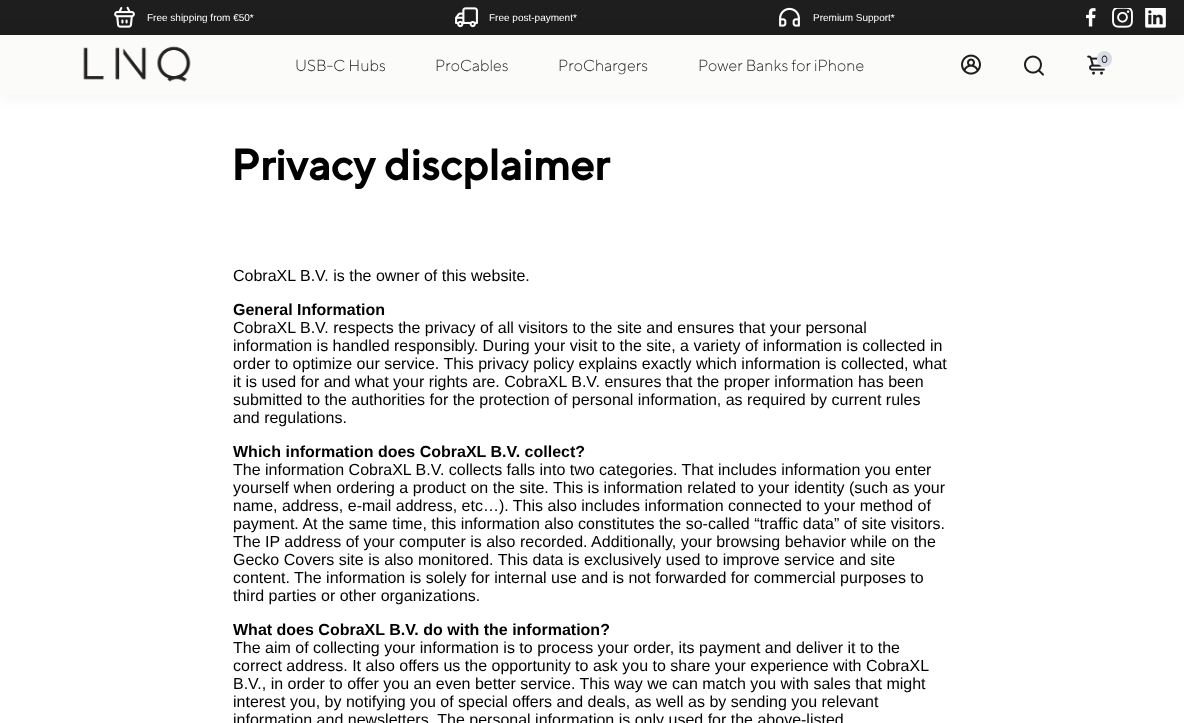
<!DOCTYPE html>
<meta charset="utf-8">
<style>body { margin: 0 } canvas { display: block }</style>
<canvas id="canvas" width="1184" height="723"></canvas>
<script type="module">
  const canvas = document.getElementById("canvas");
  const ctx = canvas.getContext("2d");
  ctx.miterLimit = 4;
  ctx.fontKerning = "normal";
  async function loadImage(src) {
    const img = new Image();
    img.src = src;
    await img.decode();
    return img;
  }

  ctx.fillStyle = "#ffffff";
  ctx.fillRect(0, 0, 1184, 723);
  ctx.fillStyle = "#1e1e1e";
  ctx.fillRect(0, 0, 1184, 35);
  ctx.drawImage(await loadImage("img1.png"), 114, 6, 21, 22);
  ctx.font = "10px Liberation Sans";
  ctx.fillStyle = "#ffffff";
  ctx.fillText("Free shipping from €50*", 147, 21);
  ctx.drawImage(await loadImage("img2.png"), 455, 7, 23, 21);
  ctx.fillText("Free post-payment*", 489, 21);
  ctx.drawImage(await loadImage("img3.png"), 779, 7, 21, 20);
  ctx.fillText("Premium Support*", 813, 21);
  ctx.drawImage(await loadImage("img4.png"), 1086, 8, 10, 19);
  ctx.drawImage(await loadImage("img5.png"), 1112, 8, 21, 20);
  ctx.drawImage(await loadImage("img6.png"), 1145, 8, 21, 20);
  ctx.fillStyle = "rgba(0, 0, 0, 0.06)";
  ctx.filter = "blur(10px)";
  ctx.beginPath();
  ctx.rect(0, 35, 1184, 60);
  ctx.fill();
  ctx.filter = "none";
  ctx.fillStyle = "#fbfbfa";
  ctx.fillRect(0, 35, 1184, 60);
  ctx.drawImage(await loadImage("img7.png"), 83, 46, 108, 36);
  ctx.font = "300 16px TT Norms";
  ctx.fillStyle = "#1e1e1e";
  ctx.fillText("USB-C Hubs", 295, 71);
  ctx.fillText("ProCables", 435, 71);
  ctx.fillText("ProChargers", 558, 71);
  ctx.fillText("Power Banks for iPhone", 698, 71);
  ctx.drawImage(await loadImage("img8.png"), 961, 54, 20, 21);
  ctx.drawImage(await loadImage("img9.png"), 1024, 55, 20, 21);
  ctx.drawImage(await loadImage("img10.png"), 1087, 55, 18, 20);
  ctx.fillStyle = "#d8dce4";
  ctx.beginPath();
  ctx.roundRect(1097, 51, 15, 16, 7.5);
  ctx.fill();
  ctx.font = "bold 10px 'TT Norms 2'";
  ctx.fillStyle = "#000000";
  ctx.fillText("0", 1101, 63);
  ctx.font = "bold 43.25px TT Norms";
  ctx.fillText("Privacy discplaimer", 231, 180);
  ctx.font = "16px Liberation Sans";
  ctx.fillText("CobraXL B.V. is the owner of this website.", 233, 281);
  ctx.font = "bold 16px Liberation Sans";
  ctx.fillText("General Information", 233, 315);
  ctx.font = "16px Liberation Sans";
  ctx.fillText("CobraXL B.V. respects the privacy of all visitors to the site and ensures that your personal", 233, 333);
  ctx.fillText("information is handled responsibly. During your visit to the site, a variety of information is collected in", 233, 351);
  ctx.fillText("order to optimize our service. This privacy policy explains exactly which information is collected, what", 233, 369);
  ctx.fillText("it is used for and what your rights are. CobraXL B.V. ensures that the proper information has been", 233, 387);
  ctx.fillText("submitted to the authorities for the protection of personal information, as required by current rules", 233, 405);
  ctx.fillText("and regulations.", 233, 423);
  ctx.font = "bold 16px Liberation Sans";
  ctx.fillText("Which information does CobraXL B.V. collect?", 233, 457);
  ctx.font = "16px Liberation Sans";
  ctx.fillText("The information CobraXL B.V. collects falls into two categories. That includes information you enter", 233, 475);
  ctx.fillText("yourself when ordering a product on the site. This is information related to your identity (such as your", 233, 493);
  ctx.fillText("name, address, e-mail address, etc…). This also includes information connected to your method of", 233, 511);
  ctx.fillText("payment. At the same time, this information also constitutes the so-called “traffic data” of site visitors.", 233, 529);
  ctx.fillText("The IP address of your computer is also recorded. Additionally, your browsing behavior while on the", 233, 547);
  ctx.fillText("Gecko Covers site is also monitored. This data is exclusively used to improve service and site", 233, 565);
  ctx.fillText("content. The information is solely for internal use and is not forwarded for commercial purposes to", 233, 583);
  ctx.fillText("third parties or other organizations.", 233, 601);
  ctx.font = "bold 16px Liberation Sans";
  ctx.fillText("What does CobraXL B.V. do with the information?", 233, 635);
  ctx.font = "16px Liberation Sans";
  ctx.fillText("The aim of collecting your information is to process your order, its payment and deliver it to the", 233, 653);
  ctx.fillText("correct address. It also offers us the opportunity to ask you to share your experience with CobraXL", 233, 671);
  ctx.fillText("B.V., in order to offer you an even better service. This way we can match you with sales that might", 233, 689);
  ctx.fillText("interest you, by notifying you of special offers and deals, as well as by sending you relevant", 233, 707);
  ctx.fillText("information and newsletters. The personal information is only used for the above-listed", 233, 725);
</script>
